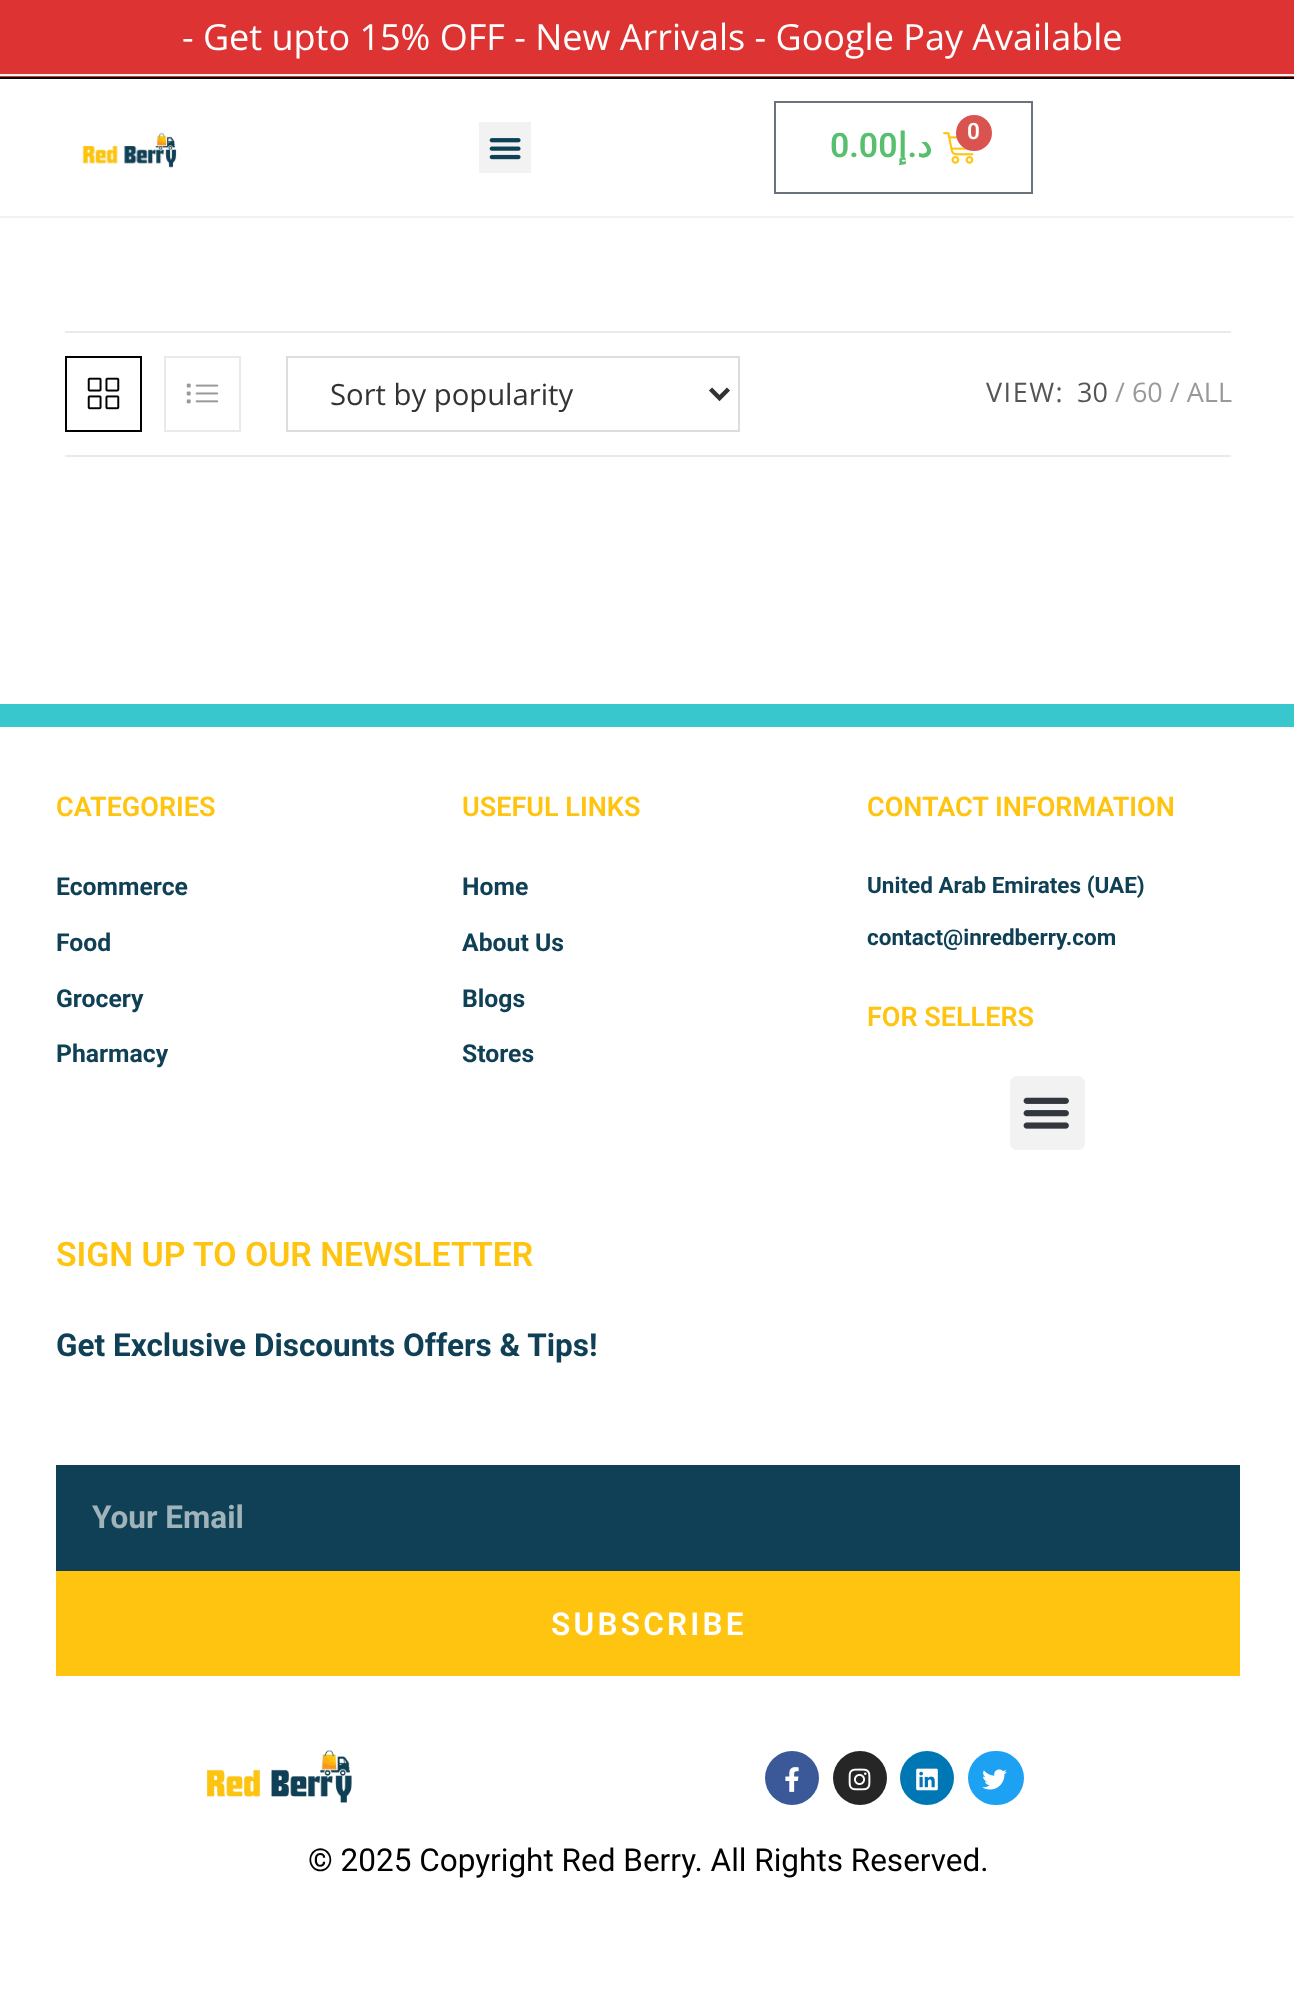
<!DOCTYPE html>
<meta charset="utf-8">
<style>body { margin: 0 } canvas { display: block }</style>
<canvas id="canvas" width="1294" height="2001"></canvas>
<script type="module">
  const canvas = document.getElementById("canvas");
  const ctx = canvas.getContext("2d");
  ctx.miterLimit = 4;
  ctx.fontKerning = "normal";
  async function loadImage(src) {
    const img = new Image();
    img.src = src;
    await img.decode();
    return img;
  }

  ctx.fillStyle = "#ffffff";
  ctx.fillRect(0, 0, 1294, 2001);
  ctx.fillStyle = "#dd3333";
  ctx.fillRect(0, 0, 1294, 77);
  ctx.fillStyle = "#f1f1f1";
  ctx.fillRect(0, 74, 1294, 2);
  ctx.font = "36px Open Sans";
  ctx.fillStyle = "#ffffff";
  ctx.fillText("- Get upto 15% OFF - New Arrivals - Google Pay Available", 182, 50);
  ctx.fillStyle = "#f1f1f1";
  ctx.fillRect(0, 216, 1294, 2);
  ctx.fillStyle = "#000000";
  ctx.fillRect(0, 77, 1294, 2);
  ctx.drawImage(await loadImage("img1.png"), 82, 132, 95, 36);
  ctx.fillStyle = "#f2f2f2";
  ctx.fillRect(479, 122, 52, 51);
  ctx.drawImage(await loadImage("img2.png"), 489, 138, 32, 22);
  ctx.strokeStyle = "#69727d";
  ctx.lineWidth = 2;
  ctx.strokeRect(775, 102, 257, 91);
  ctx.font = "600 33.75px Roboto";
  ctx.fillStyle = "#57bf6d";
  ctx.fillText("0.00", 830, 157);
  ctx.direction = "rtl";
  ctx.font = "bold 33.75px DejaVu Sans";
  ctx.fillText("إ", 907, 157);
  ctx.font = "600 33.75px Roboto";
  ctx.fillText(".", 917, 157);
  ctx.font = "bold 33.75px DejaVu Sans";
  ctx.fillText("د", 932, 157);
  ctx.drawImage(await loadImage("img3.png"), 943, 132, 31, 32);
  ctx.fillStyle = "#d9534f";
  ctx.beginPath();
  ctx.arc(974, 133, 18, 0, Math.PI * 2);
  ctx.fill();
  ctx.direction = "ltr";
  ctx.font = "600 22.5px Roboto";
  ctx.fillStyle = "#ffffff";
  ctx.fillText("0", 967, 139);
  ctx.fillStyle = "#eaeaea";
  ctx.fillRect(65, 331, 1166, 2);
  ctx.fillRect(65, 455, 1166, 2);
  ctx.strokeStyle = "#000000";
  ctx.strokeRect(66, 357, 75, 74);
  ctx.drawImage(await loadImage("img4.png"), 87, 377, 33, 33);
  ctx.strokeStyle = "#eaeaea";
  ctx.strokeRect(165, 357, 75, 74);
  ctx.drawImage(await loadImage("img5.png"), 186, 383, 33, 21);
  ctx.strokeStyle = "#dddddd";
  ctx.strokeRect(287, 357, 452, 74);
  ctx.beginPath();
  ctx.moveTo(710.5, 389);
  ctx.lineTo(719.5, 398);
  ctx.lineTo(728.5, 389);
  ctx.strokeStyle = "#333333";
  ctx.lineWidth = 4.5;
  ctx.stroke();
  ctx.font = "29.25px Open Sans";
  ctx.fillStyle = "#333333";
  ctx.fillText("Sort by popularity", 330, 405);
  ctx.letterSpacing = "1.5px";
  ctx.font = "27px Open Sans";
  ctx.fillStyle = "#555555";
  ctx.fillText("VIEW:", 986, 402);
  ctx.letterSpacing = "0px";
  ctx.fillText("30", 1077, 402);
  ctx.fillStyle = "#999999";
  ctx.fillText("/ 60 / ALL", 1115, 402);
  ctx.fillStyle = "#39c7ce";
  ctx.fillRect(0, 704, 1294, 23);
  ctx.font = "600 27px Roboto";
  ctx.fillStyle = "#ffc40f";
  ctx.fillText("CATEGORIES", 56, 816);
  ctx.font = "bold 24.75px Roboto";
  ctx.fillStyle = "#0f4055";
  ctx.fillText("Ecommerce", 56, 895);
  ctx.fillText("Food", 56, 951);
  ctx.fillText("Grocery", 56, 1007);
  ctx.fillText("Pharmacy", 56, 1062);
  ctx.font = "600 27px Roboto";
  ctx.fillStyle = "#ffc40f";
  ctx.fillText("USEFUL LINKS", 462, 816);
  ctx.font = "bold 24.75px Roboto";
  ctx.fillStyle = "#0f4055";
  ctx.fillText("Home", 462, 895);
  ctx.fillText("About Us", 462, 951);
  ctx.fillText("Blogs", 462, 1007);
  ctx.fillText("Stores", 462, 1062);
  ctx.font = "600 27px Roboto";
  ctx.fillStyle = "#ffc40f";
  ctx.fillText("CONTACT INFORMATION", 867, 816);
  ctx.font = "bold 22.5px Roboto";
  ctx.fillStyle = "#0f4055";
  ctx.fillText("United Arab Emirates (UAE)", 867, 893);
  ctx.fillText("contact@inredberry.com", 867, 945);
  ctx.font = "600 27px Roboto";
  ctx.fillStyle = "#ffc40f";
  ctx.fillText("FOR SELLERS", 867, 1026);
  ctx.fillStyle = "#f2f2f2";
  ctx.beginPath();
  ctx.roundRect(1010, 1076, 75, 74, 7);
  ctx.fill();
  ctx.drawImage(await loadImage("img6.png"), 1023, 1097, 46, 32);
  ctx.font = "600 33.75px Roboto";
  ctx.fillStyle = "#ffc40f";
  ctx.fillText("SIGN UP TO OUR NEWSLETTER", 56, 1266);
  ctx.font = "bold 31.5px Roboto";
  ctx.fillStyle = "#0f4055";
  ctx.fillText("Get Exclusive Discounts Offers & Tips!", 56, 1356);
  ctx.fillRect(56, 1465, 1184, 106);
  ctx.fillStyle = "#9fb3bb";
  ctx.fillText("Your Email", 92, 1528);
  ctx.fillStyle = "#ffc40f";
  ctx.fillRect(56, 1571, 1184, 105);
  ctx.letterSpacing = "3.25px";
  ctx.font = "600 31.5px Roboto";
  ctx.fillStyle = "#ffffff";
  ctx.fillText("SUBSCRIBE", 551, 1635);
  ctx.drawImage(await loadImage("img7.png"), 206, 1750, 146, 53);
  ctx.fillStyle = "#3b5998";
  ctx.beginPath();
  ctx.arc(792, 1778, 27, 0, Math.PI * 2);
  ctx.fill();
  ctx.drawImage(await loadImage("img8.png"), 785, 1767, 14, 25);
  ctx.fillStyle = "#262626";
  ctx.beginPath();
  ctx.arc(860, 1778, 27, 0, Math.PI * 2);
  ctx.fill();
  ctx.drawImage(await loadImage("img9.png"), 848, 1768, 23, 23);
  ctx.fillStyle = "#0077b5";
  ctx.beginPath();
  ctx.arc(927, 1778, 27, 0, Math.PI * 2);
  ctx.fill();
  ctx.drawImage(await loadImage("img10.png"), 916, 1768, 22, 23);
  ctx.fillStyle = "#1da1f2";
  ctx.beginPath();
  ctx.roundRect(968, 1751, 56, 54, 27);
  ctx.fill();
  ctx.drawImage(await loadImage("img11.png"), 982, 1769, 25, 21);
  ctx.letterSpacing = "0px";
  ctx.font = "31.5px Roboto";
  ctx.fillStyle = "#000000";
  ctx.fillText("© 2025 Copyright Red Berry. All Rights Reserved.", 308, 1871);
</script>
